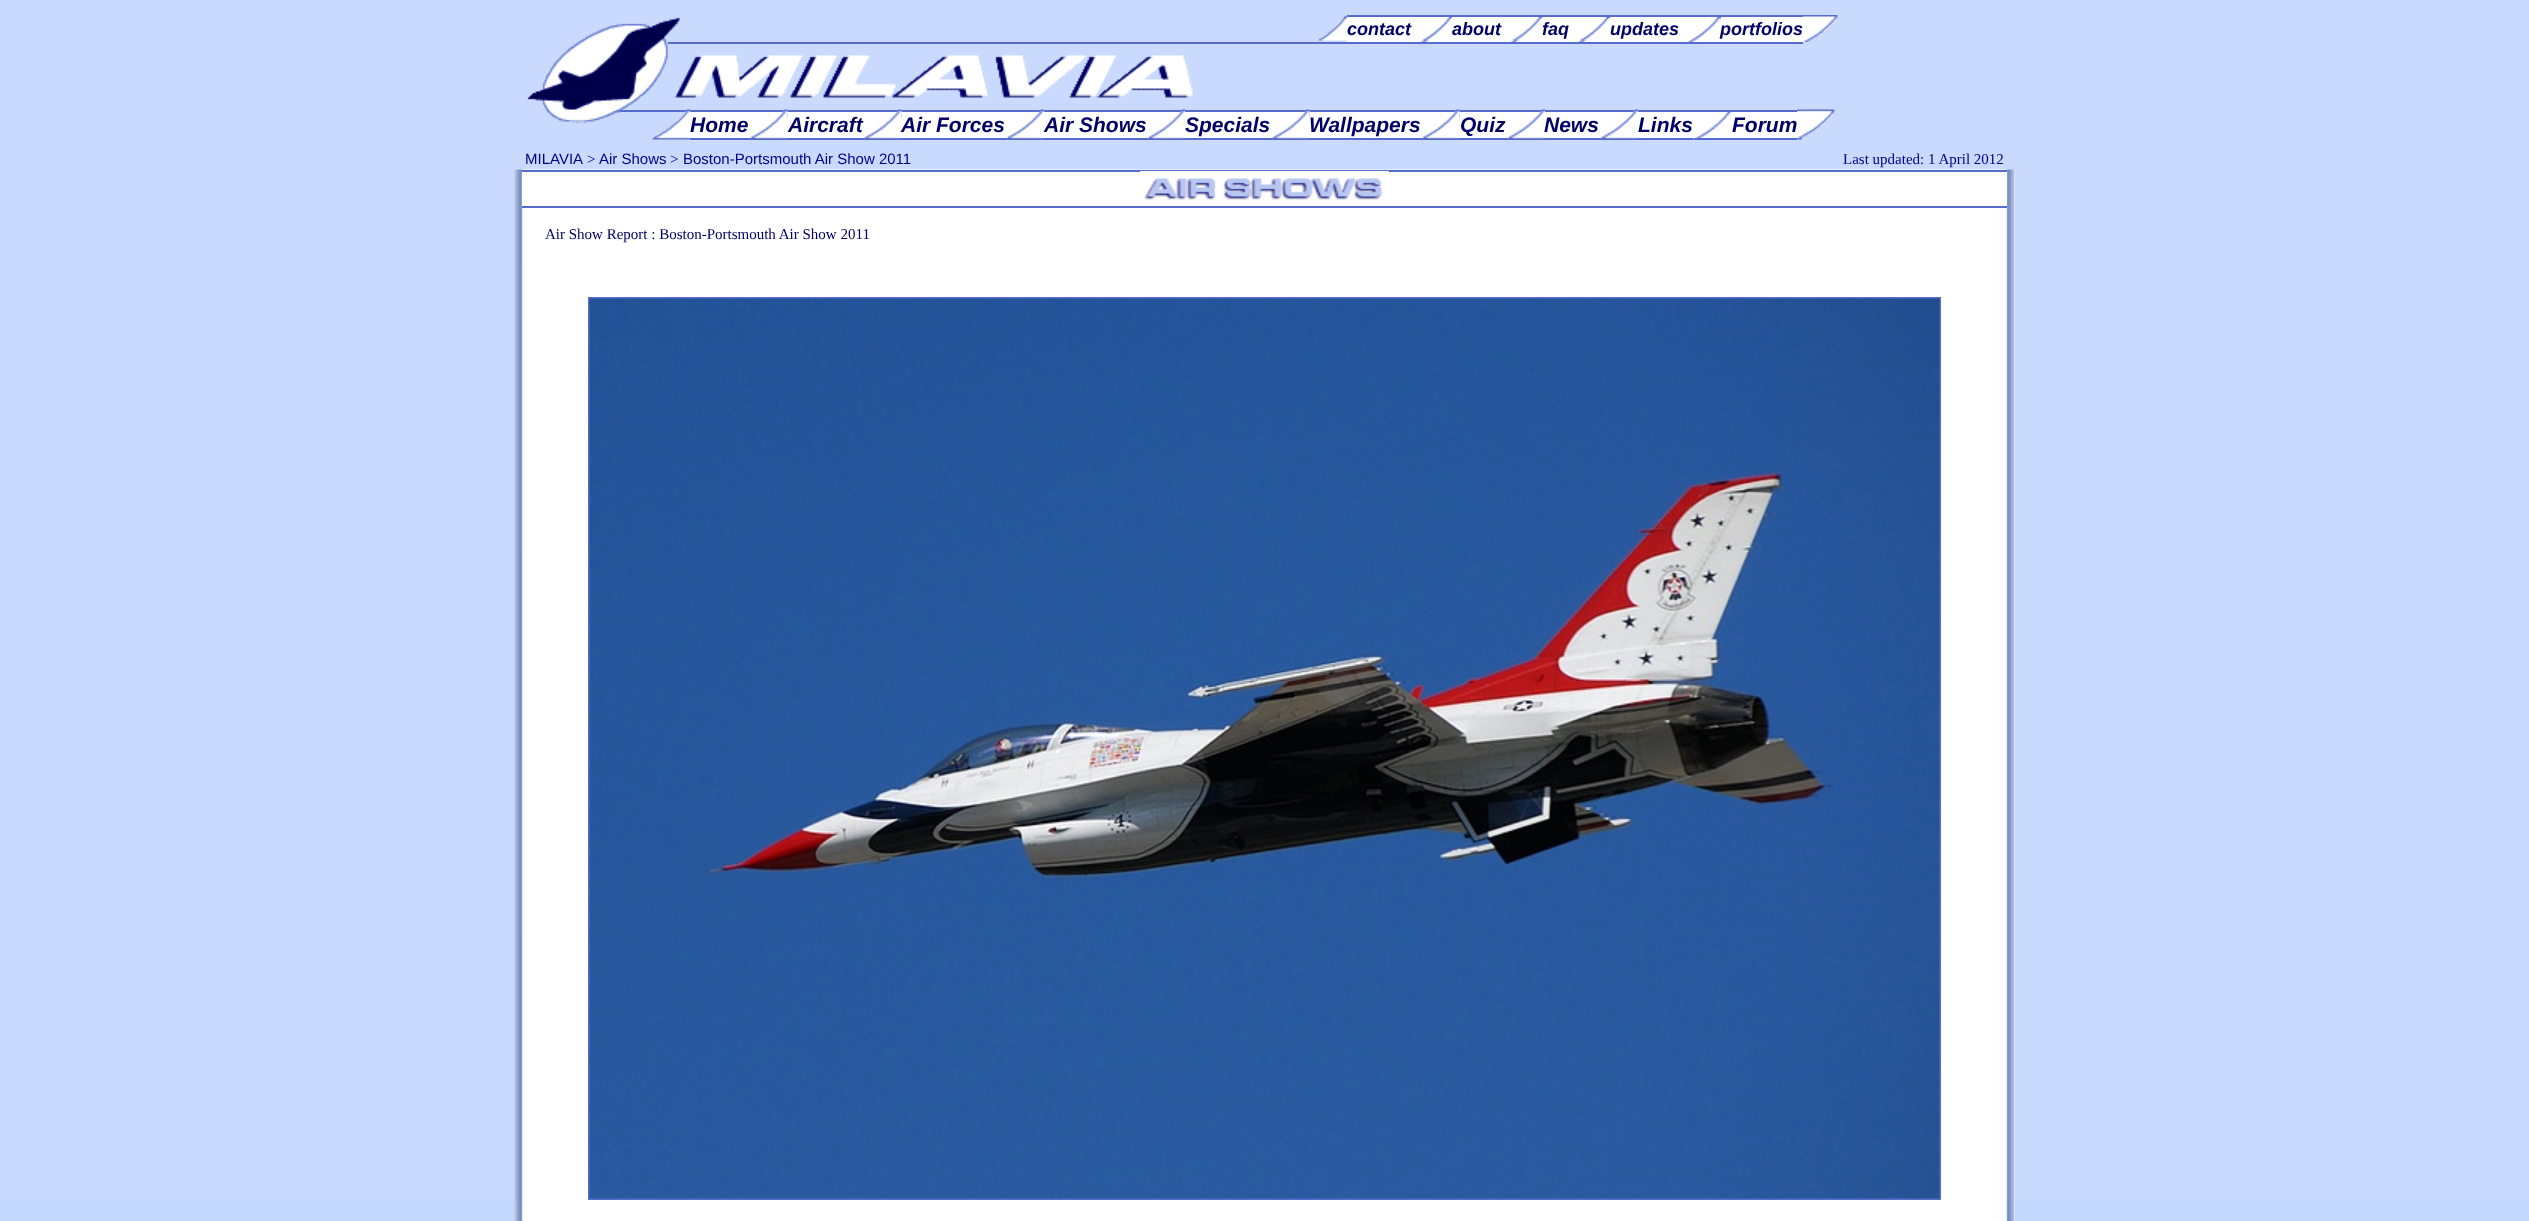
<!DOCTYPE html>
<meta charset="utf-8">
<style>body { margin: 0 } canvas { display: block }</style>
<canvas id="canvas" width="2529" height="1221"></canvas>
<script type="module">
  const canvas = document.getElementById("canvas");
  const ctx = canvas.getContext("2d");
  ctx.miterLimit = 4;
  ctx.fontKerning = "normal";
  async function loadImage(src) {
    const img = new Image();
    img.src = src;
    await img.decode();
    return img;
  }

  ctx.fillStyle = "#c9dafe";
  ctx.fillRect(0, 0, 2529, 1221);
  ctx.fillStyle = "#c4d7ff";
  ctx.fillRect(0, 1200, 2529, 21);
  ctx.drawImage(await loadImage("img1.png"), 527, 17, 666, 107);
  ctx.fillStyle = "#556ccc";
  ctx.fillRect(668, 42, 1135, 2);
  ctx.drawImage(await loadImage("img2.png"), 1317, 16, 30, 25);
  ctx.fillStyle = "#ffffff";
  ctx.fillRect(1347, 17, 103, 25);
  ctx.drawImage(await loadImage("img3.png"), 1419, 17, 33, 25);
  ctx.drawImage(await loadImage("img4.png"), 1803, 15, 35, 27);
  ctx.drawImage(await loadImage("img5.png"), 1422, 17, 30, 24);
  ctx.fillRect(1452, 17, 88, 25);
  ctx.drawImage(await loadImage("img6.png"), 1509, 17, 33, 25);
  ctx.drawImage(await loadImage("img7.png"), 1512, 17, 30, 24);
  ctx.fillRect(1542, 17, 65, 25);
  ctx.drawImage(await loadImage("img8.png"), 1576, 17, 34, 25);
  ctx.drawImage(await loadImage("img9.png"), 1579, 17, 31, 24);
  ctx.fillRect(1610, 17, 108, 25);
  ctx.drawImage(await loadImage("img8.png"), 1687, 17, 34, 25);
  ctx.drawImage(await loadImage("img10.png"), 1686, 17, 35, 25);
  ctx.font = "italic bold 18px Liberation Sans";
  ctx.fillStyle = "#000066";
  ctx.fillText("contact", 1347, 35);
  ctx.fillStyle = "#556ccc";
  ctx.fillRect(1347, 15, 456, 2);
  ctx.fillStyle = "#000066";
  ctx.fillText("about", 1452, 35);
  ctx.fillText("faq", 1542, 35);
  ctx.fillText("updates", 1610, 35);
  ctx.fillStyle = "#ffffff";
  ctx.fillRect(1721, 17, 82, 25);
  ctx.fillStyle = "#000066";
  ctx.fillText("portfolios", 1720, 35);
  ctx.fillStyle = "#556ccc";
  ctx.fillRect(620, 110, 68, 2);
  ctx.drawImage(await loadImage("img11.png"), 652, 109, 38, 31);
  ctx.fillStyle = "#ffffff";
  ctx.fillRect(690, 112, 350, 26);
  ctx.drawImage(await loadImage("img19.png"), 787, 112, 1, 26);
  ctx.fillStyle = "#556ccc";
  ctx.fillRect(690, 110, 1107, 2);
  ctx.fillRect(690, 138, 1004, 2);
  ctx.drawImage(await loadImage("img12.png"), 750, 109, 38, 30);
  ctx.drawImage(await loadImage("img19.png"), 901, 112, 1, 26);
  ctx.drawImage(await loadImage("img13.png"), 864, 109, 38, 30);
  ctx.drawImage(await loadImage("img14.png"), 1006, 109, 38, 30);
  ctx.fillStyle = "#ffffff";
  ctx.fillRect(1044, 112, 137, 26);
  ctx.drawImage(await loadImage("img15.png"), 1147, 109, 38, 30);
  ctx.fillRect(1185, 112, 356, 26);
  ctx.drawImage(await loadImage("img19.png"), 1309, 112, 1, 26);
  ctx.drawImage(await loadImage("img13.png"), 1272, 109, 38, 30);
  ctx.drawImage(await loadImage("img20.png"), 1459, 112, 1, 26);
  ctx.drawImage(await loadImage("img16.png"), 1422, 109, 38, 30);
  ctx.drawImage(await loadImage("img17.png"), 1507, 109, 38, 30);
  ctx.fillRect(1545, 112, 89, 26);
  ctx.drawImage(await loadImage("img14.png"), 1600, 109, 38, 30);
  ctx.drawImage(await loadImage("img18.png"), 1797, 109, 38, 31);
  ctx.fillRect(1638, 112, 91, 26);
  ctx.drawImage(await loadImage("img21.png"), 1693, 112, 38, 28);
  ctx.font = "italic bold 21px Liberation Sans";
  ctx.fillStyle = "#000066";
  ctx.fillText("Home", 690, 132);
  ctx.fillText("Aircraft", 788, 132);
  ctx.fillText("Air Forces", 901, 132);
  ctx.fillText("Air Shows", 1044, 132);
  ctx.fillText("Specials", 1185, 132);
  ctx.fillText("Wallpapers", 1309, 132);
  ctx.fillText("Quiz", 1460, 132);
  ctx.fillText("News", 1544, 132);
  ctx.fillText("Links", 1638, 132);
  ctx.fillStyle = "#ffffff";
  ctx.fillRect(1731, 112, 66, 26);
  ctx.fillStyle = "#000066";
  ctx.fillText("Forum", 1732, 132);
  ctx.fillStyle = "#556ccc";
  ctx.fillRect(1694, 138, 103, 2);
  ctx.font = "15px Liberation Sans";
  ctx.fillStyle = "#00008c";
  ctx.fillText("MILAVIA", 525, 164);
  ctx.font = "15px Liberation Serif";
  ctx.fillText(">", 587, 164);
  ctx.font = "15px Liberation Sans";
  ctx.fillText("Air Shows", 599, 164);
  ctx.font = "15px Liberation Serif";
  ctx.fillText(">", 670, 164);
  ctx.font = "15px Liberation Sans";
  ctx.fillText("Boston-Portsmouth Air Show 2011", 683, 164);
  ctx.font = "15px Liberation Serif";
  ctx.fillText("Last updated: 1 April 2012", 1843, 164);
  ctx.fillStyle = "#ffffff";
  ctx.fillRect(2014, 170, 1, 1051);
  ctx.drawImage(await loadImage("img22.png"), 514, 169, 1501, 1052);
  ctx.fillRect(522, 172, 1485, 34);
  ctx.fillStyle = "#556ccc";
  ctx.fillRect(522, 170, 1485, 2);
  ctx.fillRect(522, 206, 1485, 2);
  ctx.drawImage(await loadImage("img23.png"), 1140, 171, 249, 29);
  ctx.fillStyle = "#000066";
  ctx.fillText("Air Show Report : Boston-Portsmouth Air Show 2011", 545, 239);
  ctx.strokeStyle = "#556ccc";
  ctx.lineWidth = 2;
  ctx.strokeRect(589, 298, 1351, 901);
  ctx.drawImage(await loadImage("img24.png"), 589, 298, 1351, 901);
</script>
